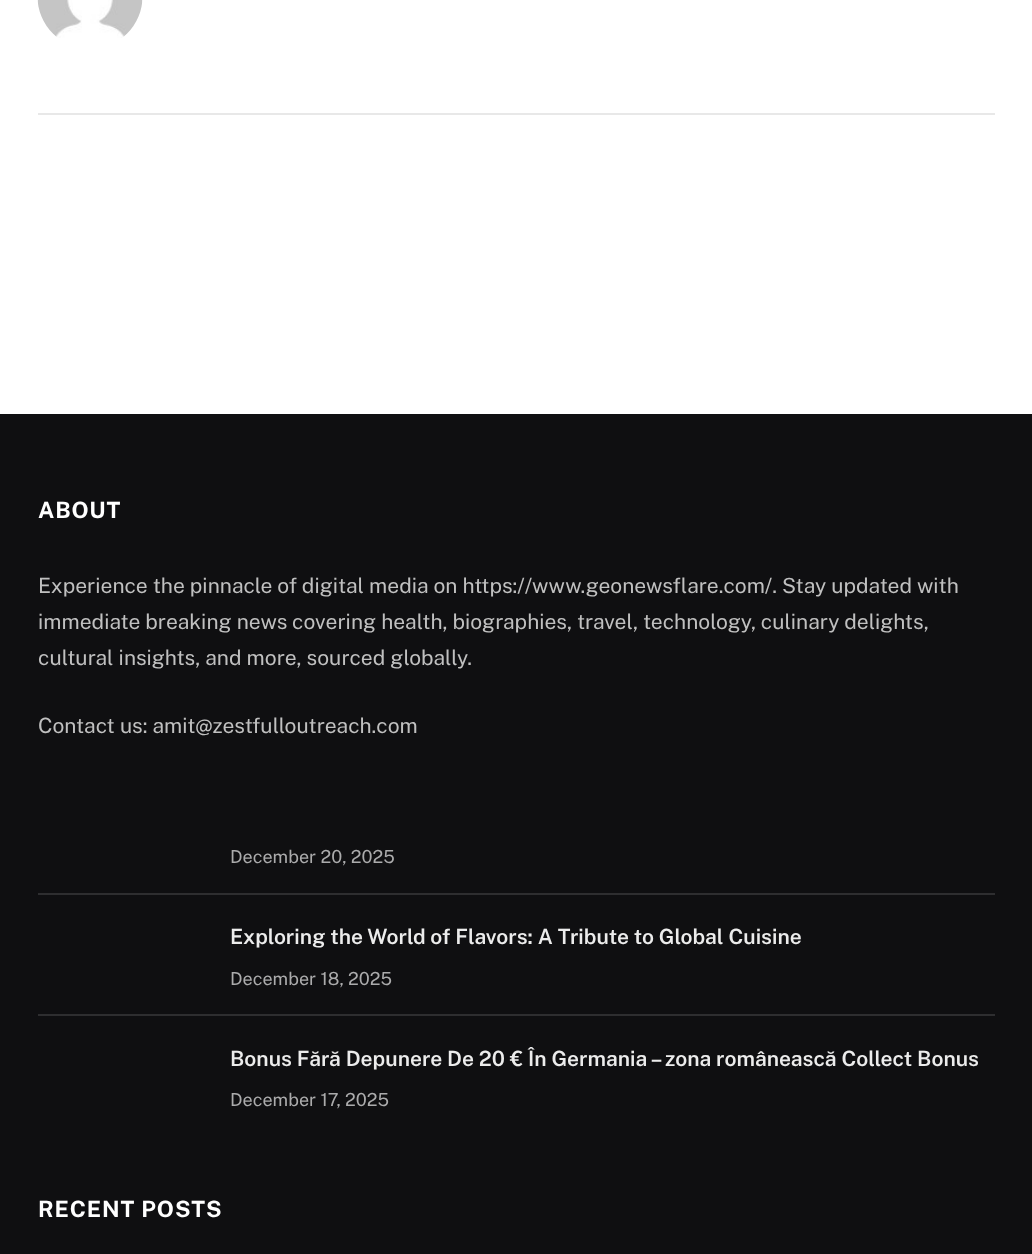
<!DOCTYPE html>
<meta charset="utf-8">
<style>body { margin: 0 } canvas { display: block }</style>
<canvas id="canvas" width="1032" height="1254"></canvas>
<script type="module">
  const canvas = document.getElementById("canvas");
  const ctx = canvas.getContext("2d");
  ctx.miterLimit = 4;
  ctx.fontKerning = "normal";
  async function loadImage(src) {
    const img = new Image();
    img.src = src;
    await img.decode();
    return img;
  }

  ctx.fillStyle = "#ffffff";
  ctx.fillRect(0, 0, 1032, 1254);
  ctx.fillStyle = "#e8e8e8";
  ctx.fillRect(38, 113, 957, 2);
  ctx.drawImage(await loadImage("img1.png"), 37, 0, 106, 38);
  ctx.fillStyle = "#0f0f11";
  ctx.fillRect(0, 414, 1032, 840);
  ctx.letterSpacing = "0.9px";
  ctx.font = "bold 22.5px Public Sans";
  ctx.fillStyle = "#ffffff";
  ctx.fillText("ABOUT", 38, 518);
  ctx.letterSpacing = "0px";
  ctx.font = "21px Public Sans";
  ctx.fillStyle = "#c0c0c0";
  ctx.fillText("Experience the pinnacle of digital media on https://www.geonewsflare.com/. Stay updated with", 38, 593);
  ctx.fillText("immediate breaking news covering health, biographies, travel, technology, culinary delights,", 38, 629);
  ctx.fillText("cultural insights, and more, sourced globally.", 38, 665);
  ctx.fillText("Contact us: amit@zestfulloutreach.com", 38, 733);
  ctx.font = "18px Public Sans";
  ctx.fillStyle = "#ababac";
  ctx.fillText("December 20, 2025", 230, 863);
  ctx.fillStyle = "#2e2e30";
  ctx.fillRect(38, 893, 957, 2);
  ctx.font = "600 21px Public Sans";
  ctx.fillStyle = "#ececec";
  ctx.fillText("Exploring the World of Flavors: A Tribute to Global Cuisine", 230, 944);
  ctx.font = "18px Public Sans";
  ctx.fillStyle = "#ababac";
  ctx.fillText("December 18, 2025", 230, 985);
  ctx.fillStyle = "#2e2e30";
  ctx.fillRect(38, 1014, 957, 2);
  ctx.font = "600 21px Public Sans";
  ctx.fillStyle = "#ececec";
  ctx.fillText("Bonus Fără Depunere De 20 € În Germania – zona românească Collect Bonus", 230, 1066);
  ctx.font = "18px Public Sans";
  ctx.fillStyle = "#ababac";
  ctx.fillText("December 17, 2025", 230, 1106);
  ctx.letterSpacing = "0.9px";
  ctx.font = "bold 22.5px Public Sans";
  ctx.fillStyle = "#ffffff";
  ctx.fillText("RECENT POSTS", 38, 1217);
</script>
